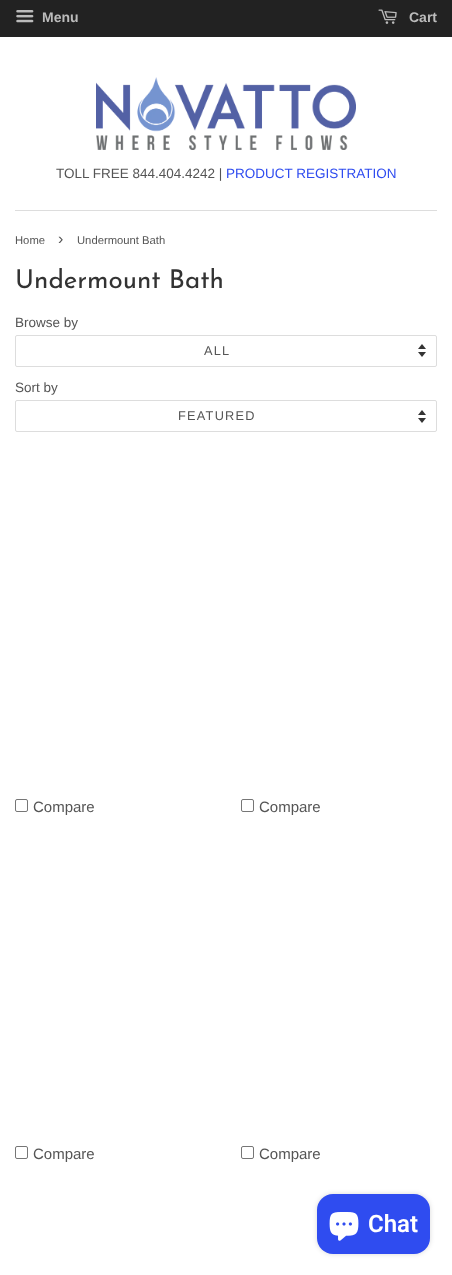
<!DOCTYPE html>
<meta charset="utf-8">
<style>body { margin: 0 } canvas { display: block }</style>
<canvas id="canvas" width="452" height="1275"></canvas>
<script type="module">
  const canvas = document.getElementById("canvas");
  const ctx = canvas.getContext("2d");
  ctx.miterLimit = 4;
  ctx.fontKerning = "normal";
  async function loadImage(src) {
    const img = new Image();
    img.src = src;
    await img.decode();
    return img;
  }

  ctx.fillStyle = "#ffffff";
  ctx.fillRect(0, 0, 452, 1275);
  ctx.fillStyle = "#222222";
  ctx.fillRect(0, 0, 452, 37);
  ctx.drawImage(await loadImage("img1.png"), 16, 10, 18, 13);
  ctx.font = "bold 14px Liberation Sans";
  ctx.fillStyle = "#bbbbbb";
  ctx.fillText("Menu", 42, 22);
  ctx.drawImage(await loadImage("img2.png"), 378, 9, 19, 15);
  ctx.fillText("Cart", 409, 22);
  ctx.fillStyle = "#dddddd";
  ctx.fillRect(15, 210, 422, 1);
  ctx.drawImage(await loadImage("img3.png"), 96, 77, 260, 73);
  ctx.font = "13.5px Liberation Sans";
  ctx.fillStyle = "#555555";
  ctx.fillText("TOLL FREE 844.404.4242 |", 56, 178);
  ctx.fillStyle = "#2f4cf0";
  ctx.fillText("PRODUCT REGISTRATION", 226, 178);
  ctx.font = "11.25px Liberation Sans";
  ctx.fillStyle = "#555555";
  ctx.fillText("Home", 15, 244);
  ctx.font = "16px Liberation Sans";
  ctx.fillText("›", 58, 244);
  ctx.font = "11.25px Liberation Sans";
  ctx.fillText("Undermount Bath", 77, 244);
  ctx.font = "100 26px Josefin Sans";
  ctx.fillStyle = "#333333";
  ctx.fillText("Undermount Bath", 15, 288);
  ctx.font = "13.5px Liberation Sans";
  ctx.fillStyle = "#555555";
  ctx.fillText("Browse by", 15, 327);
  ctx.drawImage(await loadImage("img4.png"), 418, 344, 8, 13);
  ctx.beginPath();
  ctx.roundRect(15.5, 335.5, 421, 31, 1.5);
  ctx.strokeStyle = "#dddddd";
  ctx.stroke();
  ctx.letterSpacing = "1.25px";
  ctx.font = "12.75px Liberation Sans";
  ctx.fillText("ALL", 204, 355);
  ctx.letterSpacing = "0px";
  ctx.font = "13.5px Liberation Sans";
  ctx.fillText("Sort by", 15, 392);
  ctx.drawImage(await loadImage("img4.png"), 418, 410, 8, 13);
  ctx.beginPath();
  ctx.roundRect(15.5, 400.5, 421, 31, 1.5);
  ctx.stroke();
  ctx.letterSpacing = "1.25px";
  ctx.font = "12.75px Liberation Sans";
  ctx.fillText("FEATURED", 178, 420);
  ctx.beginPath();
  ctx.roundRect(15.5, 799.5, 12, 12, 1.5);
  ctx.strokeStyle = "#767676";
  ctx.stroke();
  ctx.letterSpacing = "0px";
  ctx.font = "15px Liberation Sans";
  ctx.fillText("Compare", 33, 812);
  ctx.beginPath();
  ctx.roundRect(241.5, 799.5, 12, 12, 1.5);
  ctx.stroke();
  ctx.fillText("Compare", 259, 812);
  ctx.beginPath();
  ctx.roundRect(15.5, 1146.5, 12, 12, 1.5);
  ctx.stroke();
  ctx.fillText("Compare", 33, 1159);
  ctx.beginPath();
  ctx.roundRect(241.5, 1146.5, 12, 12, 1.5);
  ctx.stroke();
  ctx.fillText("Compare", 259, 1159);
  ctx.fillStyle = "rgba(0, 0, 0, 0.15)";
  ctx.filter = "blur(2.5px)";
  ctx.beginPath();
  ctx.roundRect(317, 1194, 113, 60, 16);
  ctx.fill();
  ctx.filter = "none";
  ctx.fillStyle = "#2f4cf0";
  ctx.beginPath();
  ctx.roundRect(317, 1194, 113, 60, 16);
  ctx.fill();
  ctx.drawImage(await loadImage("img5.png"), 329, 1212, 30, 29);
  ctx.font = "600 24px Roboto";
  ctx.fillStyle = "#ffffff";
  ctx.fillText("Chat", 368, 1232);
</script>
